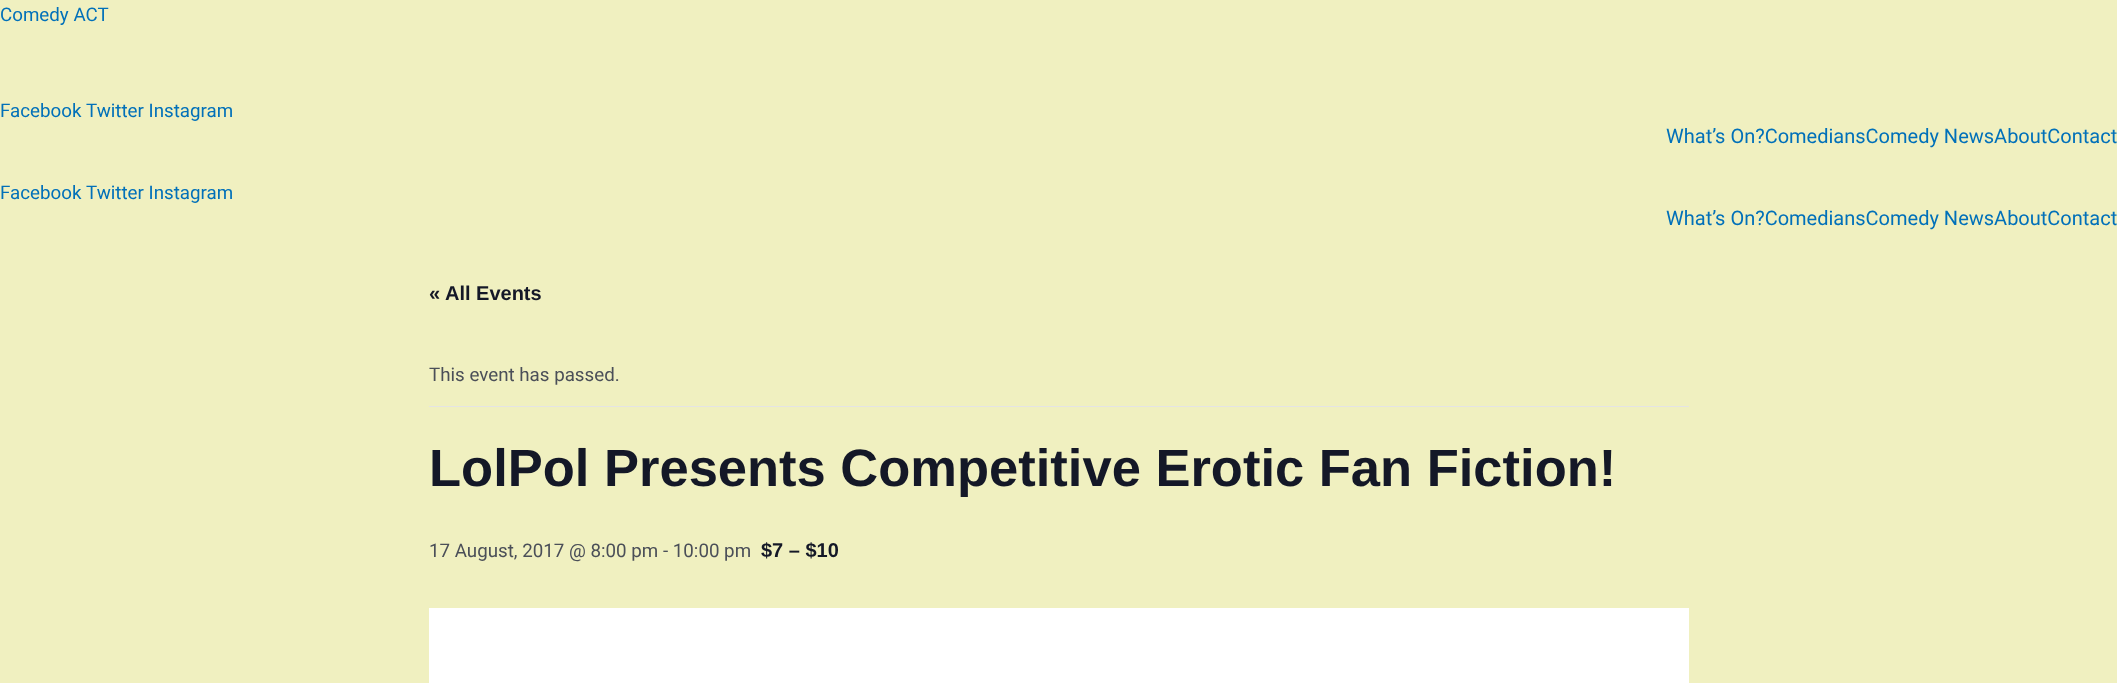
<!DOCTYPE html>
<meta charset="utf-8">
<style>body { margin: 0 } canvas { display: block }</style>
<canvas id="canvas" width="2117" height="683"></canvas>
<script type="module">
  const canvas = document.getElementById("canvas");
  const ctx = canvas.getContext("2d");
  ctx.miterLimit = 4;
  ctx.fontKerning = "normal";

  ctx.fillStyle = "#f0f0c0";
  ctx.fillRect(0, 0, 2117, 683);
  ctx.font = "18.75px Roboto";
  ctx.fillStyle = "#0170b9";
  ctx.fillText("Comedy ACT", 0, 21);
  ctx.fillText("Facebook", 0, 117);
  ctx.fillText("Twitter Instagram", 86, 117);
  ctx.font = "20px Roboto";
  ctx.fillText("What’s On?ComediansComedy NewsAboutContact", 1666, 143);
  ctx.font = "18.75px Roboto";
  ctx.fillText("Facebook", 0, 199);
  ctx.fillText("Twitter Instagram", 86, 199);
  ctx.font = "20px Roboto";
  ctx.fillText("What’s On?ComediansComedy NewsAboutContact", 1666, 225);
  ctx.font = "bold 20px Liberation Sans";
  ctx.fillStyle = "#141827";
  ctx.fillText("« All Events", 429, 300);
  ctx.fillStyle = "#e4e4e4";
  ctx.fillRect(429, 406, 1260, 1);
  ctx.font = "18.75px Roboto";
  ctx.fillStyle = "#4b4f58";
  ctx.fillText("This event has passed.", 429, 381);
  ctx.font = "bold 52.5px Liberation Sans";
  ctx.fillStyle = "#141827";
  ctx.fillText("LolPol Presents Competitive Erotic Fan Fiction!", 429, 486);
  ctx.font = "18.75px Roboto";
  ctx.fillStyle = "#4b4f58";
  ctx.fillText("17 August, 2017 @ 8:00 pm - 10:00 pm", 429, 557);
  ctx.font = "bold 20px Liberation Sans";
  ctx.fillStyle = "#141827";
  ctx.fillText("$7 – $10", 761, 557);
  ctx.fillStyle = "#ffffff";
  ctx.fillRect(429, 608, 1260, 75);
</script>
